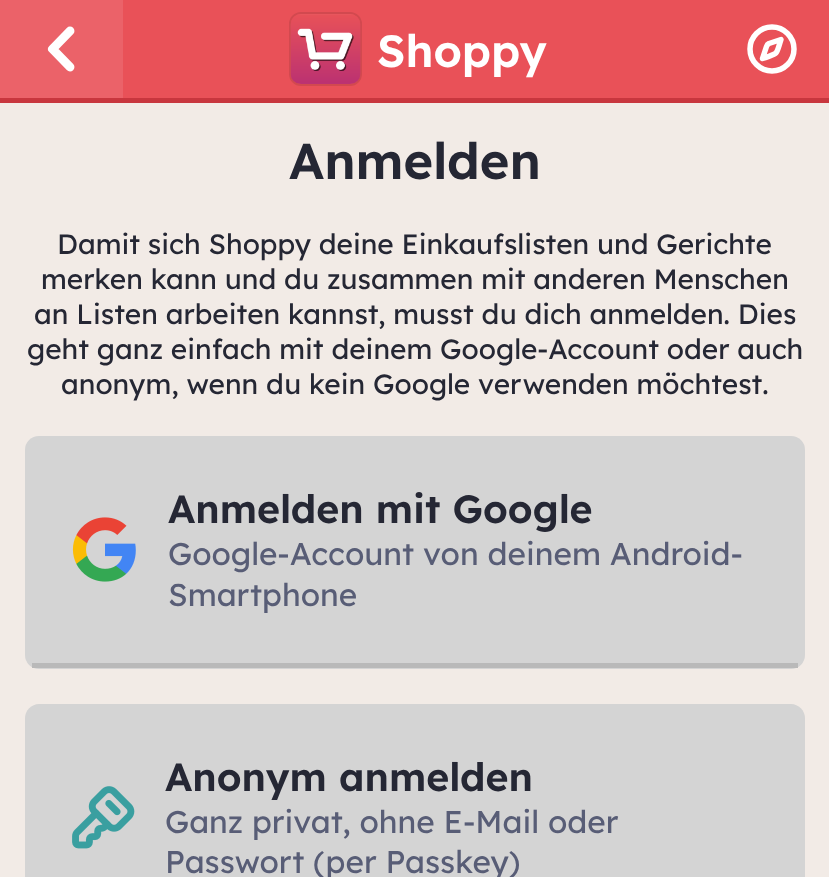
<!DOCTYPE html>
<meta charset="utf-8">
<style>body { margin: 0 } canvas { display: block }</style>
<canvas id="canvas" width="829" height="877"></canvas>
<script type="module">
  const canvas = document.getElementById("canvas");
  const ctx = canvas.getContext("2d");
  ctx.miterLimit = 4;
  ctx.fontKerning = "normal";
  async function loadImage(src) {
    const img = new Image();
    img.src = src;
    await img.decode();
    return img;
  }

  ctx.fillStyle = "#f2ebe6";
  ctx.fillRect(0, 0, 829, 877);
  ctx.fillStyle = "#e95158";
  ctx.fillRect(123, 0, 706, 98);
  ctx.fillStyle = "#c8363e";
  ctx.fillRect(0, 98, 829, 5);
  ctx.fillStyle = "#eb6269";
  ctx.fillRect(0, 0, 123, 98);
  ctx.beginPath();
  ctx.moveTo(70, 67);
  ctx.lineTo(52.5, 49);
  ctx.lineTo(70, 31);
  ctx.strokeStyle = "#ffffff";
  ctx.lineWidth = 8.9;
  ctx.lineCap = "round";
  ctx.lineJoin = "round";
  ctx.stroke();
  ctx.beginPath();
  ctx.roundRect(290, 13, 71, 72, 11);
  ctx.strokeStyle = "#d2494f";
  ctx.lineWidth = 2;
  ctx.lineJoin = "miter";
  ctx.stroke();
  ctx.drawImage(await loadImage("img1.png"), 290, 14, 71, 70);
  ctx.font = "600 45px Lexend";
  ctx.fillStyle = "#ffffff";
  ctx.fillText("Shoppy", 377, 67);
  ctx.beginPath();
  ctx.moveTo(781, 39.5);
  ctx.bezierCurveTo(775.5, 56.5, 779, 52.5, 762.5, 58.5);
  ctx.lineTo(766.5, 46.5);
  ctx.bezierCurveTo(767, 45, 768, 44, 769, 43.5);
  ctx.closePath();
  ctx.strokeStyle = "#ffffff";
  ctx.lineWidth = 5.5;
  ctx.lineJoin = "round";
  ctx.stroke();
  ctx.beginPath();
  ctx.arc(772, 49, 22, 0, Math.PI * 2);
  ctx.stroke();
  ctx.font = "600 50.5px Lexend";
  ctx.fillStyle = "#252734";
  ctx.fillText("Anmelden", 289, 179);
  ctx.font = "28px Lexend";
  ctx.fillText("Damit sich Shoppy deine Einkaufslisten und Gerichte", 57, 254);
  ctx.fillText("merken kann und du zusammen mit anderen Menschen", 41, 289);
  ctx.fillText("an Listen arbeiten kannst, musst du dich anmelden. Dies", 34, 324);
  ctx.fillText("geht ganz einfach mit deinem Google-Account oder auch", 27, 359);
  ctx.fillText("anonym, wenn du kein Google verwenden möchtest.", 61, 394);
  ctx.fillStyle = "#d4d4d4";
  ctx.beginPath();
  ctx.roundRect(25, 436, 780, 233, 14);
  ctx.fill();
  ctx.fillStyle = "#b9b9b9";
  ctx.fillRect(32, 663, 766, 5);
  ctx.font = "600 39.25px Lexend";
  ctx.fillStyle = "#252734";
  ctx.fillText("Anmelden mit Google", 168, 523);
  ctx.drawImage(await loadImage("img2.png"), 72, 517, 64, 65);
  ctx.font = "31.5px Lexend";
  ctx.fillStyle = "#585d76";
  ctx.fillText("Google-Account von deinem Android-", 168, 565);
  ctx.fillText("Smartphone", 168, 606);
  ctx.fillStyle = "#d4d4d4";
  ctx.beginPath();
  ctx.moveTo(39, 704);
  ctx.lineTo(791, 704);
  ctx.bezierCurveTo(798.5, 704, 805, 710.5, 805, 718);
  ctx.lineTo(805, 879);
  ctx.lineTo(25, 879);
  ctx.lineTo(25, 718);
  ctx.bezierCurveTo(25, 710.5, 31.5, 704, 39, 704);
  ctx.closePath();
  ctx.fill();
  ctx.font = "600 39.25px Lexend";
  ctx.fillStyle = "#252734";
  ctx.fillText("Anonym anmelden", 165, 791);
  ctx.drawImage(await loadImage("img3.png"), 72, 786, 63, 63);
  ctx.font = "31.5px Lexend";
  ctx.fillStyle = "#585d76";
  ctx.fillText("Ganz privat, ohne E-Mail oder", 165, 833);
  ctx.fillText("Passwort (per Passkey)", 165, 873);
</script>
